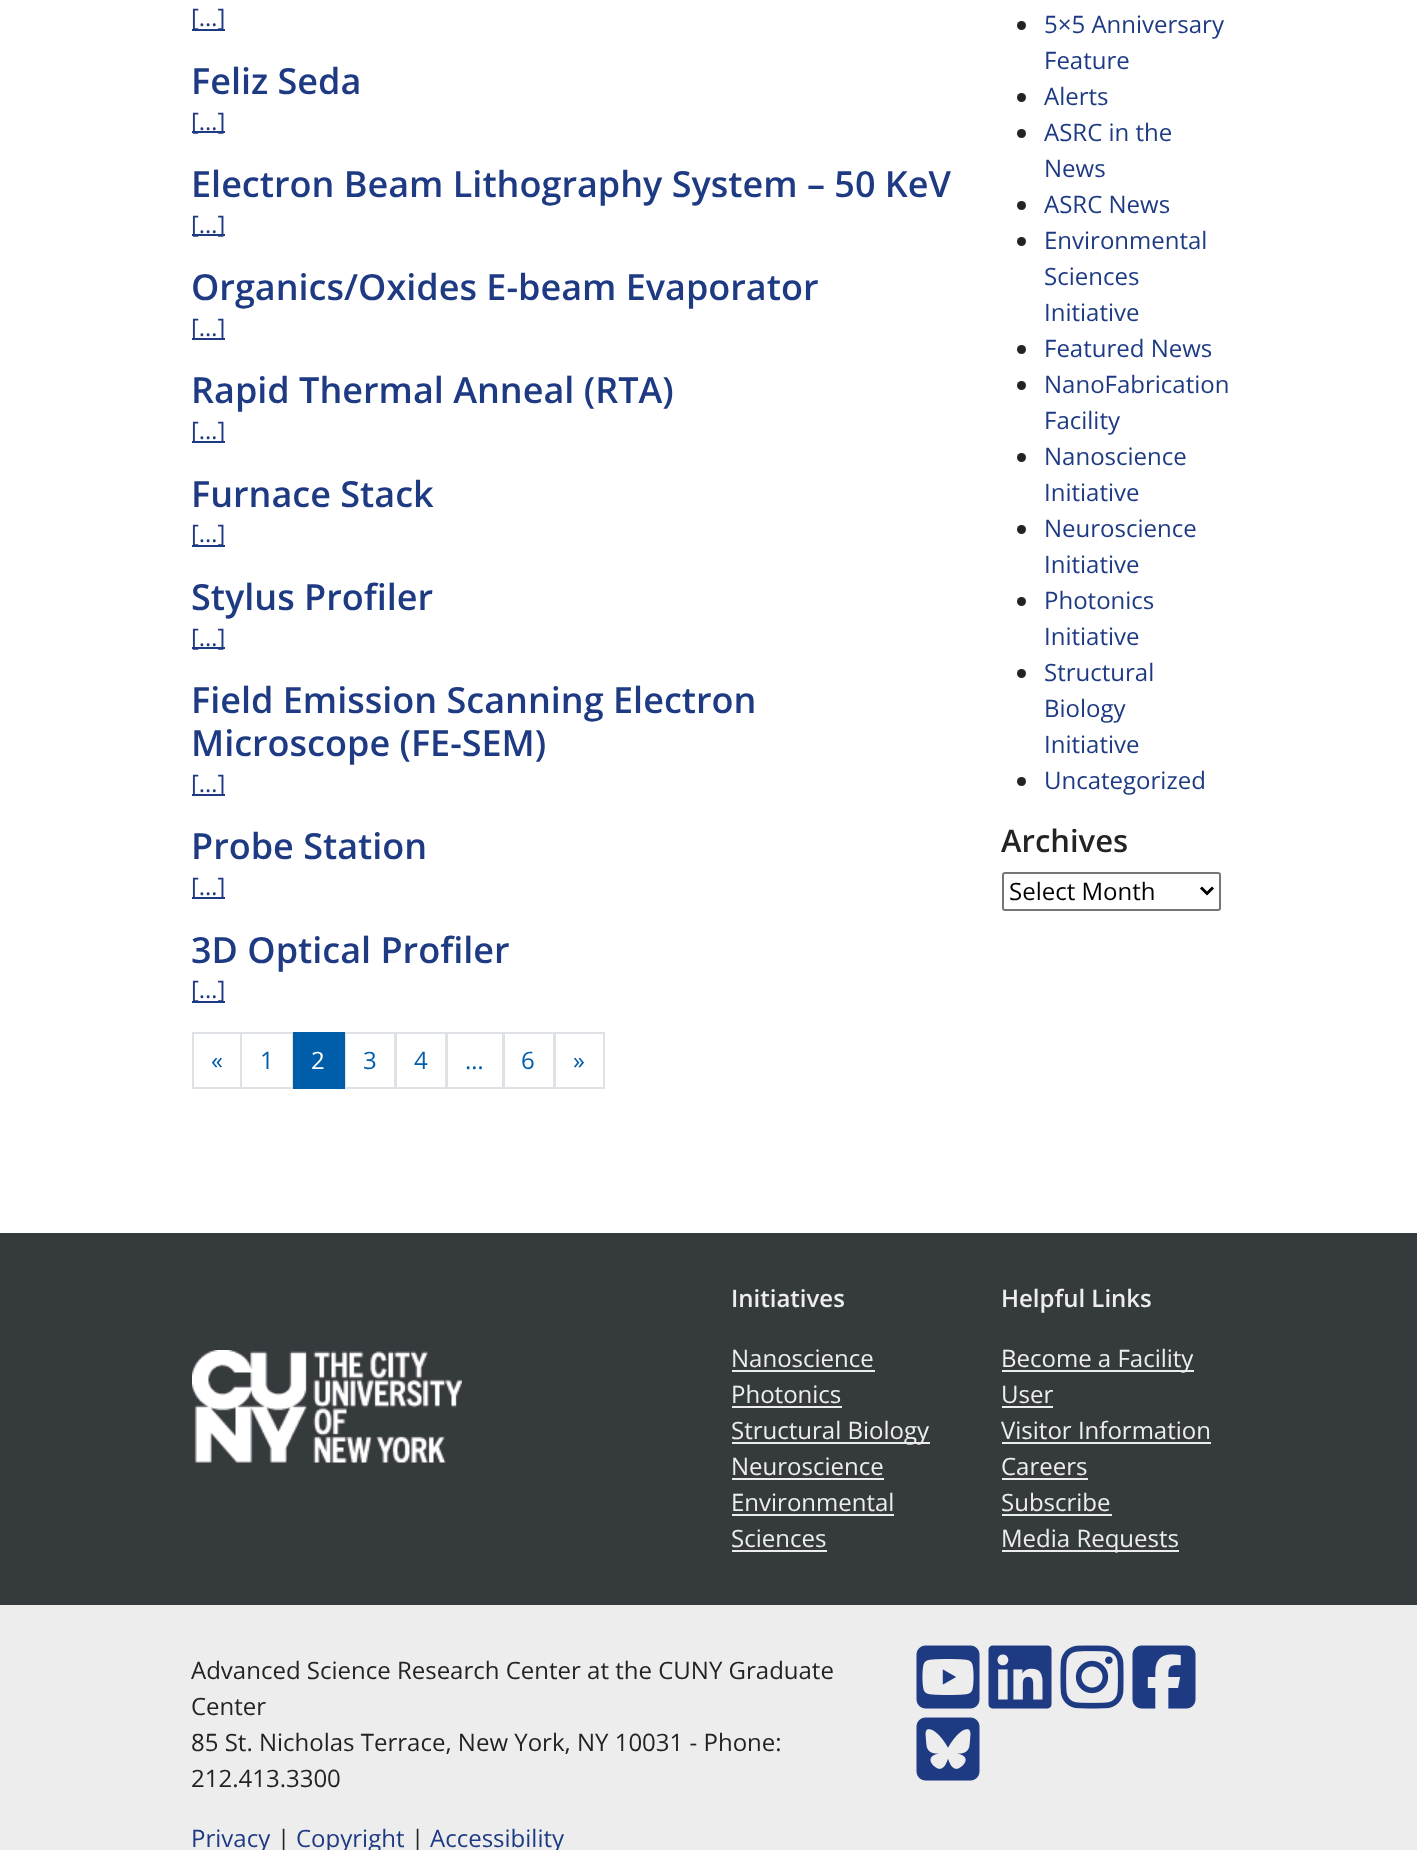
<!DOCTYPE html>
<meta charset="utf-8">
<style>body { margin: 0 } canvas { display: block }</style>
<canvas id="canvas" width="1417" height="1850"></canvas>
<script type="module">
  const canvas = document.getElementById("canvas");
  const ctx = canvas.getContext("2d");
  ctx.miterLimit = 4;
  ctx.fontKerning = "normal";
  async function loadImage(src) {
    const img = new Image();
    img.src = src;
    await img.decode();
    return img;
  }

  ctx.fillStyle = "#ffffff";
  ctx.fillRect(0, 0, 1417, 1850);
  ctx.fillStyle = "#1d3a83";
  ctx.fillRect(192, 29, 33, 2);
  ctx.font = "24px Open Sans";
  ctx.fillText("[…]", 191, 26);
  ctx.font = "600 36px Open Sans";
  ctx.fillText("Feliz Seda", 191, 94);
  ctx.fillRect(192, 131, 33, 2);
  ctx.font = "24px Open Sans";
  ctx.fillText("[…]", 191, 130);
  ctx.font = "600 36px Open Sans";
  ctx.fillText("Electron Beam Lithography System – 50 KeV", 191, 197);
  ctx.fillRect(192, 234, 33, 2);
  ctx.font = "24px Open Sans";
  ctx.fillText("[…]", 191, 233);
  ctx.font = "600 36px Open Sans";
  ctx.fillText("Organics/Oxides E-beam Evaporator", 191, 300);
  ctx.fillRect(192, 338, 33, 2);
  ctx.font = "24px Open Sans";
  ctx.fillText("[…]", 191, 336);
  ctx.font = "600 36px Open Sans";
  ctx.fillText("Rapid Thermal Anneal (RTA)", 191, 403);
  ctx.fillRect(192, 441, 33, 2);
  ctx.font = "24px Open Sans";
  ctx.fillText("[…]", 191, 439);
  ctx.font = "600 36px Open Sans";
  ctx.fillText("Furnace Stack", 191, 507);
  ctx.fillRect(192, 545, 33, 2);
  ctx.font = "24px Open Sans";
  ctx.fillText("[…]", 191, 542);
  ctx.font = "600 36px Open Sans";
  ctx.fillText("Stylus Profiler", 191, 610);
  ctx.fillRect(192, 647, 33, 2);
  ctx.font = "24px Open Sans";
  ctx.fillText("[…]", 191, 646);
  ctx.font = "600 36px Open Sans";
  ctx.fillText("Field Emission Scanning Electron", 191, 713);
  ctx.fillText("Microscope (FE-SEM)", 191, 756);
  ctx.fillRect(192, 794, 33, 2);
  ctx.font = "24px Open Sans";
  ctx.fillText("[…]", 191, 792);
  ctx.font = "600 36px Open Sans";
  ctx.fillText("Probe Station", 191, 859);
  ctx.fillRect(192, 897, 33, 2);
  ctx.font = "24px Open Sans";
  ctx.fillText("[…]", 191, 895);
  ctx.font = "600 36px Open Sans";
  ctx.fillText("3D Optical Profiler", 191, 963);
  ctx.fillRect(192, 1001, 33, 2);
  ctx.font = "24px Open Sans";
  ctx.fillText("[…]", 191, 998);
  ctx.strokeStyle = "#dee2e6";
  ctx.lineWidth = 2;
  ctx.strokeRect(193, 1033, 48, 55);
  ctx.fillStyle = "#005daa";
  ctx.fillText("«", 211, 1069);
  ctx.strokeRect(241, 1033, 52, 55);
  ctx.fillText("1", 260, 1069);
  ctx.strokeRect(345, 1033, 50, 55);
  ctx.fillRect(293, 1032, 52, 57);
  ctx.fillStyle = "#ffffff";
  ctx.fillText("2", 311, 1069);
  ctx.fillStyle = "#005daa";
  ctx.fillText("3", 363, 1069);
  ctx.strokeRect(396, 1033, 50, 55);
  ctx.fillText("4", 414, 1069);
  ctx.strokeRect(447, 1033, 56, 55);
  ctx.fillText("…", 465, 1069);
  ctx.strokeRect(504, 1033, 50, 55);
  ctx.fillText("6", 521, 1069);
  ctx.strokeRect(555, 1033, 49, 55);
  ctx.fillText("»", 573, 1069);
  ctx.fillStyle = "#232323";
  ctx.beginPath();
  ctx.arc(1021.5, 25.5, 4.5, 0, Math.PI * 2);
  ctx.fill();
  ctx.fillStyle = "#1d3a83";
  ctx.fillText("5×5 Anniversary", 1044, 33);
  ctx.fillText("Feature", 1044, 69);
  ctx.fillStyle = "#232323";
  ctx.beginPath();
  ctx.arc(1021.5, 97.5, 4.5, 0, Math.PI * 2);
  ctx.fill();
  ctx.fillStyle = "#1d3a83";
  ctx.fillText("Alerts", 1044, 105);
  ctx.fillStyle = "#232323";
  ctx.beginPath();
  ctx.arc(1021.5, 133.5, 4.5, 0, Math.PI * 2);
  ctx.fill();
  ctx.fillStyle = "#1d3a83";
  ctx.fillText("ASRC in the", 1044, 141);
  ctx.fillText("News", 1044, 177);
  ctx.fillStyle = "#232323";
  ctx.beginPath();
  ctx.arc(1021.5, 205.5, 4.5, 0, Math.PI * 2);
  ctx.fill();
  ctx.fillStyle = "#1d3a83";
  ctx.fillText("ASRC News", 1044, 213);
  ctx.fillStyle = "#232323";
  ctx.beginPath();
  ctx.arc(1021.5, 241.5, 4.5, 0, Math.PI * 2);
  ctx.fill();
  ctx.fillStyle = "#1d3a83";
  ctx.fillText("Environmental", 1044, 249);
  ctx.fillText("Sciences", 1044, 285);
  ctx.fillText("Initiative", 1044, 321);
  ctx.fillStyle = "#232323";
  ctx.beginPath();
  ctx.arc(1021.5, 349.5, 4.5, 0, Math.PI * 2);
  ctx.fill();
  ctx.fillStyle = "#1d3a83";
  ctx.fillText("Featured News", 1044, 357);
  ctx.fillStyle = "#232323";
  ctx.beginPath();
  ctx.arc(1021.5, 385.5, 4.5, 0, Math.PI * 2);
  ctx.fill();
  ctx.fillStyle = "#1d3a83";
  ctx.fillText("NanoFabrication", 1044, 393);
  ctx.fillText("Facility", 1044, 429);
  ctx.fillStyle = "#232323";
  ctx.beginPath();
  ctx.arc(1021.5, 457.5, 4.5, 0, Math.PI * 2);
  ctx.fill();
  ctx.fillStyle = "#1d3a83";
  ctx.fillText("Nanoscience", 1044, 465);
  ctx.fillText("Initiative", 1044, 501);
  ctx.fillStyle = "#232323";
  ctx.beginPath();
  ctx.arc(1021.5, 529.5, 4.5, 0, Math.PI * 2);
  ctx.fill();
  ctx.fillStyle = "#1d3a83";
  ctx.fillText("Neuroscience", 1044, 537);
  ctx.fillText("Initiative", 1044, 573);
  ctx.fillStyle = "#232323";
  ctx.beginPath();
  ctx.arc(1021.5, 601.5, 4.5, 0, Math.PI * 2);
  ctx.fill();
  ctx.fillStyle = "#1d3a83";
  ctx.fillText("Photonics", 1044, 609);
  ctx.fillText("Initiative", 1044, 645);
  ctx.fillStyle = "#232323";
  ctx.beginPath();
  ctx.arc(1021.5, 673.5, 4.5, 0, Math.PI * 2);
  ctx.fill();
  ctx.fillStyle = "#1d3a83";
  ctx.fillText("Structural", 1044, 681);
  ctx.fillText("Biology", 1044, 717);
  ctx.fillText("Initiative", 1044, 753);
  ctx.fillStyle = "#232323";
  ctx.beginPath();
  ctx.arc(1021.5, 781.5, 4.5, 0, Math.PI * 2);
  ctx.fill();
  ctx.fillStyle = "#1d3a83";
  ctx.fillText("Uncategorized", 1044, 789);
  ctx.font = "600 31px Open Sans";
  ctx.fillStyle = "#232323";
  ctx.fillText("Archives", 1001, 852);
  ctx.beginPath();
  ctx.roundRect(1003, 873, 217, 37, 2);
  ctx.strokeStyle = "#767676";
  ctx.stroke();
  ctx.beginPath();
  ctx.moveTo(1201, 887.5);
  ctx.lineTo(1207, 893.5);
  ctx.lineTo(1213, 887.5);
  ctx.strokeStyle = "#000000";
  ctx.lineWidth = 3;
  ctx.stroke();
  ctx.font = "24px Open Sans";
  ctx.fillStyle = "#000000";
  ctx.fillText("Select Month", 1009, 900);
  ctx.fillStyle = "#353a3d";
  ctx.fillRect(0, 1233, 1417, 372);
  ctx.drawImage(await loadImage("img1.png"), 192, 1350, 270, 113);
  ctx.font = "600 24px Open Sans";
  ctx.fillStyle = "#ededed";
  ctx.fillText("Initiatives", 731, 1307);
  ctx.font = "24px Open Sans";
  ctx.fillText("Nanoscience", 731, 1367);
  ctx.fillRect(732, 1370, 143, 2);
  ctx.fillText("Photonics", 731, 1403);
  ctx.fillRect(732, 1406, 110, 2);
  ctx.fillRect(732, 1442, 198, 2);
  ctx.fillText("Structural Biology", 731, 1439);
  ctx.fillText("Neuroscience", 731, 1475);
  ctx.fillRect(732, 1478, 152, 2);
  ctx.fillText("Environmental", 731, 1511);
  ctx.fillRect(732, 1514, 162, 2);
  ctx.fillText("Sciences", 731, 1547);
  ctx.fillRect(732, 1550, 95, 2);
  ctx.font = "600 24px Open Sans";
  ctx.fillText("Helpful Links", 1001, 1307);
  ctx.fillRect(1002, 1370, 192, 2);
  ctx.font = "24px Open Sans";
  ctx.fillText("Become a Facility", 1001, 1367);
  ctx.fillText("User", 1001, 1403);
  ctx.fillRect(1002, 1406, 51, 2);
  ctx.fillText("Visitor Information", 1001, 1439);
  ctx.fillRect(1002, 1442, 209, 2);
  ctx.fillText("Careers", 1001, 1475);
  ctx.fillRect(1002, 1478, 86, 2);
  ctx.fillText("Subscribe", 1001, 1511);
  ctx.fillRect(1002, 1514, 110, 2);
  ctx.fillRect(1002, 1550, 177, 2);
  ctx.fillText("Media Requests", 1001, 1547);
  ctx.fillRect(0, 1605, 1417, 245);
  ctx.fillStyle = "#232323";
  ctx.fillText("Advanced Science Research Center at the CUNY Graduate", 191, 1679);
  ctx.fillText("Center", 191, 1715);
  ctx.fillText("85 St. Nicholas Terrace, New York, NY 10031 - Phone:", 191, 1751);
  ctx.fillText("212.413.3300", 191, 1787);
  ctx.fillStyle = "#1d3a83";
  ctx.fillText("Privacy", 191, 1847);
  ctx.fillStyle = "#232323";
  ctx.fillText("|", 277, 1847);
  ctx.fillStyle = "#1d3a83";
  ctx.fillText("Copyright", 296, 1847);
  ctx.fillStyle = "#232323";
  ctx.fillText("|", 411, 1847);
  ctx.fillStyle = "#1d3a83";
  ctx.fillText("Accessibility", 430, 1847);
  ctx.drawImage(await loadImage("img2.png"), 916, 1645, 64, 64);
  ctx.drawImage(await loadImage("img3.png"), 988, 1645, 64, 64);
  ctx.drawImage(await loadImage("img4.png"), 1060, 1645, 64, 64);
  ctx.drawImage(await loadImage("img5.png"), 1132, 1645, 64, 64);
  ctx.drawImage(await loadImage("img6.png"), 916, 1717, 64, 64);
</script>
